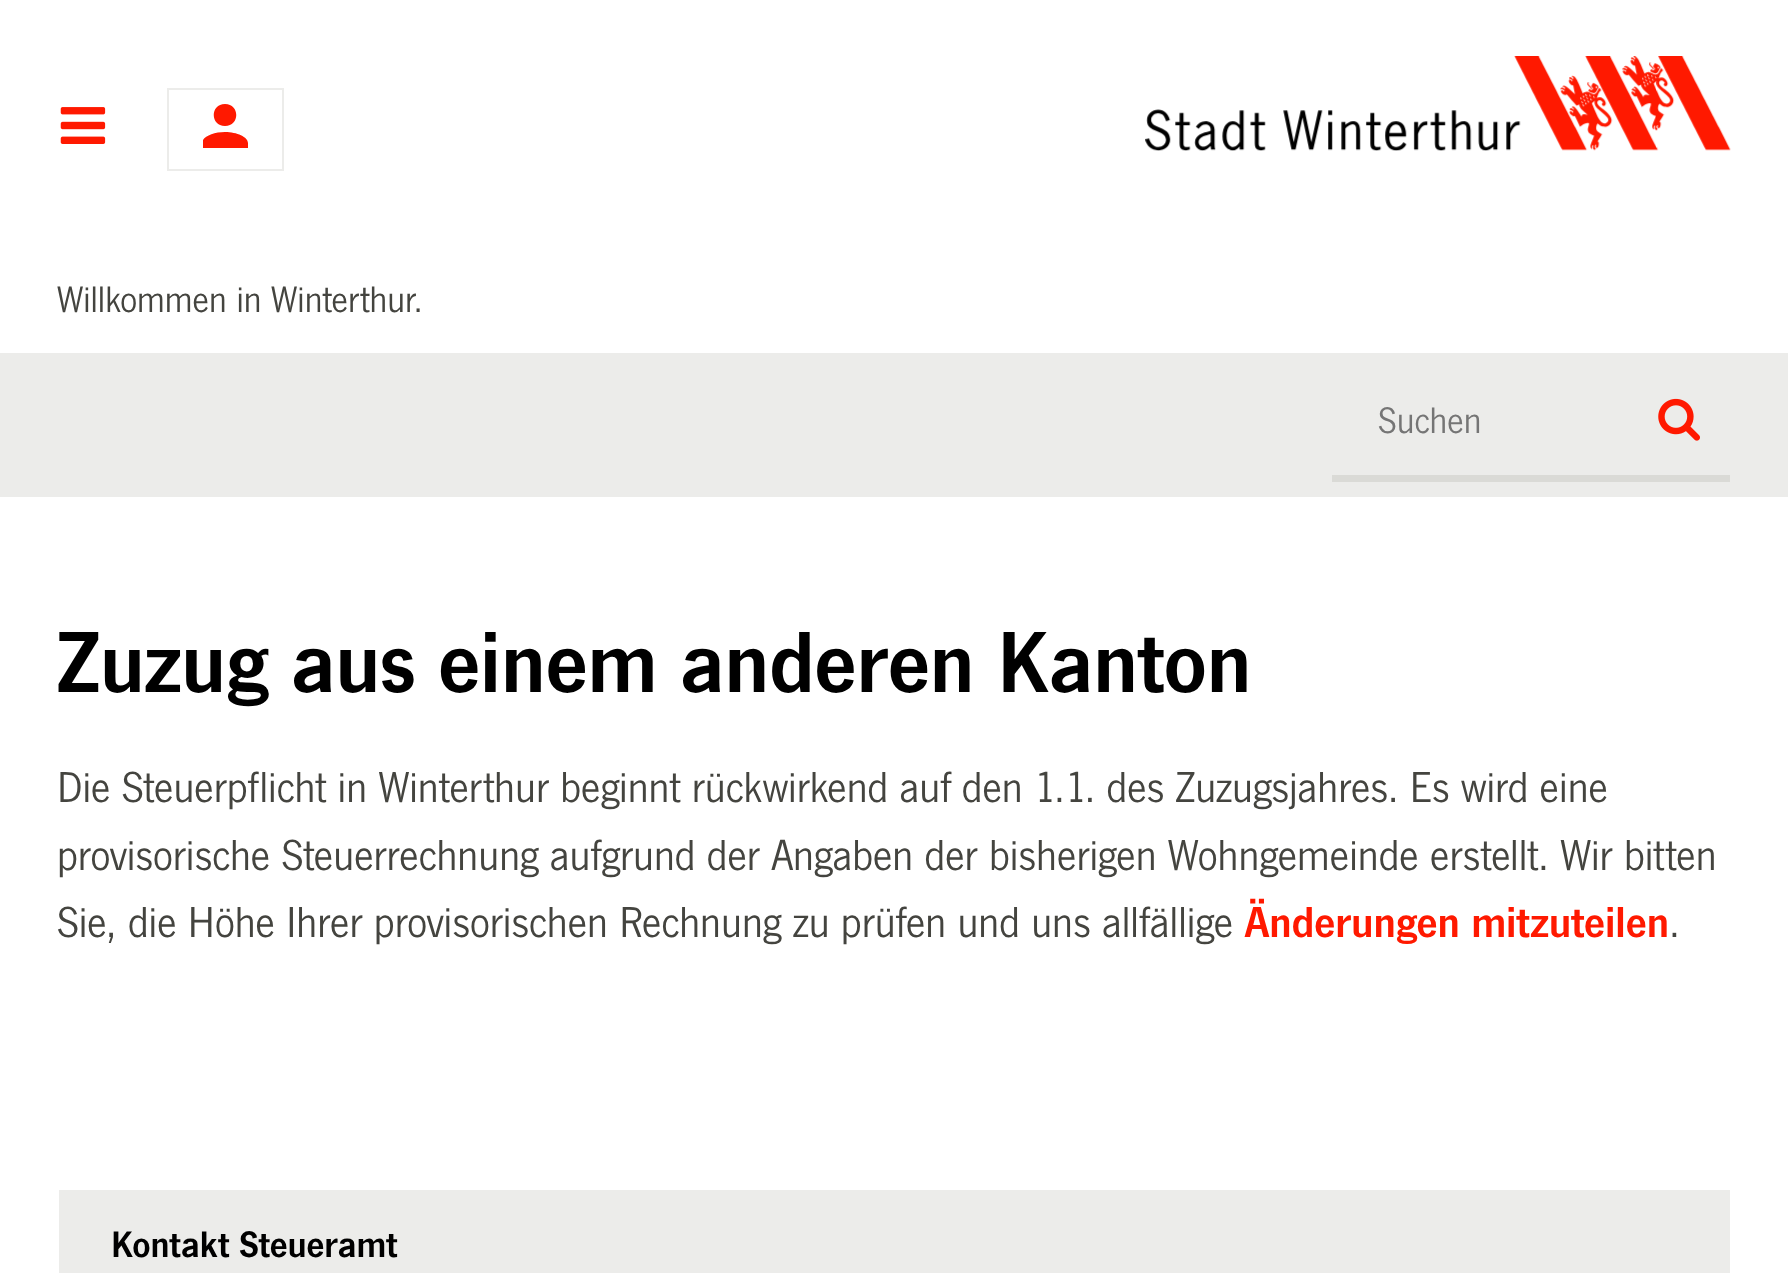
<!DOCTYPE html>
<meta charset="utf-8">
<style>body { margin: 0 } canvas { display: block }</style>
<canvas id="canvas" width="1788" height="1273"></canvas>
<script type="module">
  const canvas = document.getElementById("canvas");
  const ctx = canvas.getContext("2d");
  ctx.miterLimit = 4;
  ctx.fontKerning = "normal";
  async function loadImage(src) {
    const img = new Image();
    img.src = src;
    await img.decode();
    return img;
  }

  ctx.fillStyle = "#ffffff";
  ctx.fillRect(0, 0, 1788, 1273);
  ctx.drawImage(await loadImage("img1.png"), 60, 107, 46, 37);
  ctx.strokeStyle = "#ececea";
  ctx.lineWidth = 2;
  ctx.strokeRect(168, 89, 115, 81);
  ctx.save();
  ctx.beginPath();
  ctx.rect(203, 104, 45, 45);
  ctx.clip();
  ctx.fillStyle = "#ff1900";
  ctx.beginPath();
  ctx.moveTo(225, 104);
  ctx.bezierCurveTo(240, 104, 240, 126, 225, 126);
  ctx.bezierCurveTo(210, 126, 210, 104, 225, 104);
  ctx.moveTo(225, 132);
  ctx.bezierCurveTo(237, 132, 248, 137, 248, 143);
  ctx.lineTo(248, 148);
  ctx.lineTo(202, 148);
  ctx.lineTo(202, 143);
  ctx.bezierCurveTo(202, 137, 213, 132, 225, 132);
  ctx.closePath();
  ctx.fill();
  ctx.restore();
  ctx.drawImage(await loadImage("img2.png"), 1145, 56, 586, 95);
  ctx.font = "38.25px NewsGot";
  ctx.fillStyle = "#44443f";
  ctx.fillText("Willkommen in Winterthur.", 57, 312);
  ctx.fillStyle = "#ececea";
  ctx.fillRect(0, 353, 1788, 144);
  ctx.fillStyle = "#dadad6";
  ctx.fillRect(1332, 475, 398, 7);
  ctx.fillStyle = "#757575";
  ctx.fillText("Suchen", 1378, 433);
  ctx.drawImage(await loadImage("img3.png"), 1658, 398, 42, 43);
  ctx.font = "90px 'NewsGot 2'";
  ctx.fillStyle = "#000000";
  ctx.fillText("Zuzug aus einem anderen Kanton", 57, 692);
  ctx.font = "45px NewsGot";
  ctx.fillStyle = "#44443f";
  ctx.fillText("Die Steuerpflicht in Winterthur beginnt rückwirkend auf den 1.1. des Zuzugsjahres. Es wird eine", 57, 802);
  ctx.fillText("provisorische Steuerrechnung aufgrund der Angaben der bisherigen Wohngemeinde erstellt. Wir bitten", 57, 870);
  ctx.fillText("Sie, die Höhe Ihrer provisorischen Rechnung zu prüfen und uns allfällige", 57, 937);
  ctx.font = "45px 'NewsGot 2'";
  ctx.fillStyle = "#ff1900";
  ctx.fillText("Änderungen mitzuteilen", 1245, 937);
  ctx.font = "45px NewsGot";
  ctx.fillStyle = "#44443f";
  ctx.fillText(".", 1669, 937);
  ctx.fillStyle = "#ececea";
  ctx.fillRect(59, 1190, 1671, 83);
  ctx.font = "38.25px 'NewsGot 2'";
  ctx.fillStyle = "#000000";
  ctx.fillText("Kontakt Steueramt", 111, 1257);
</script>
